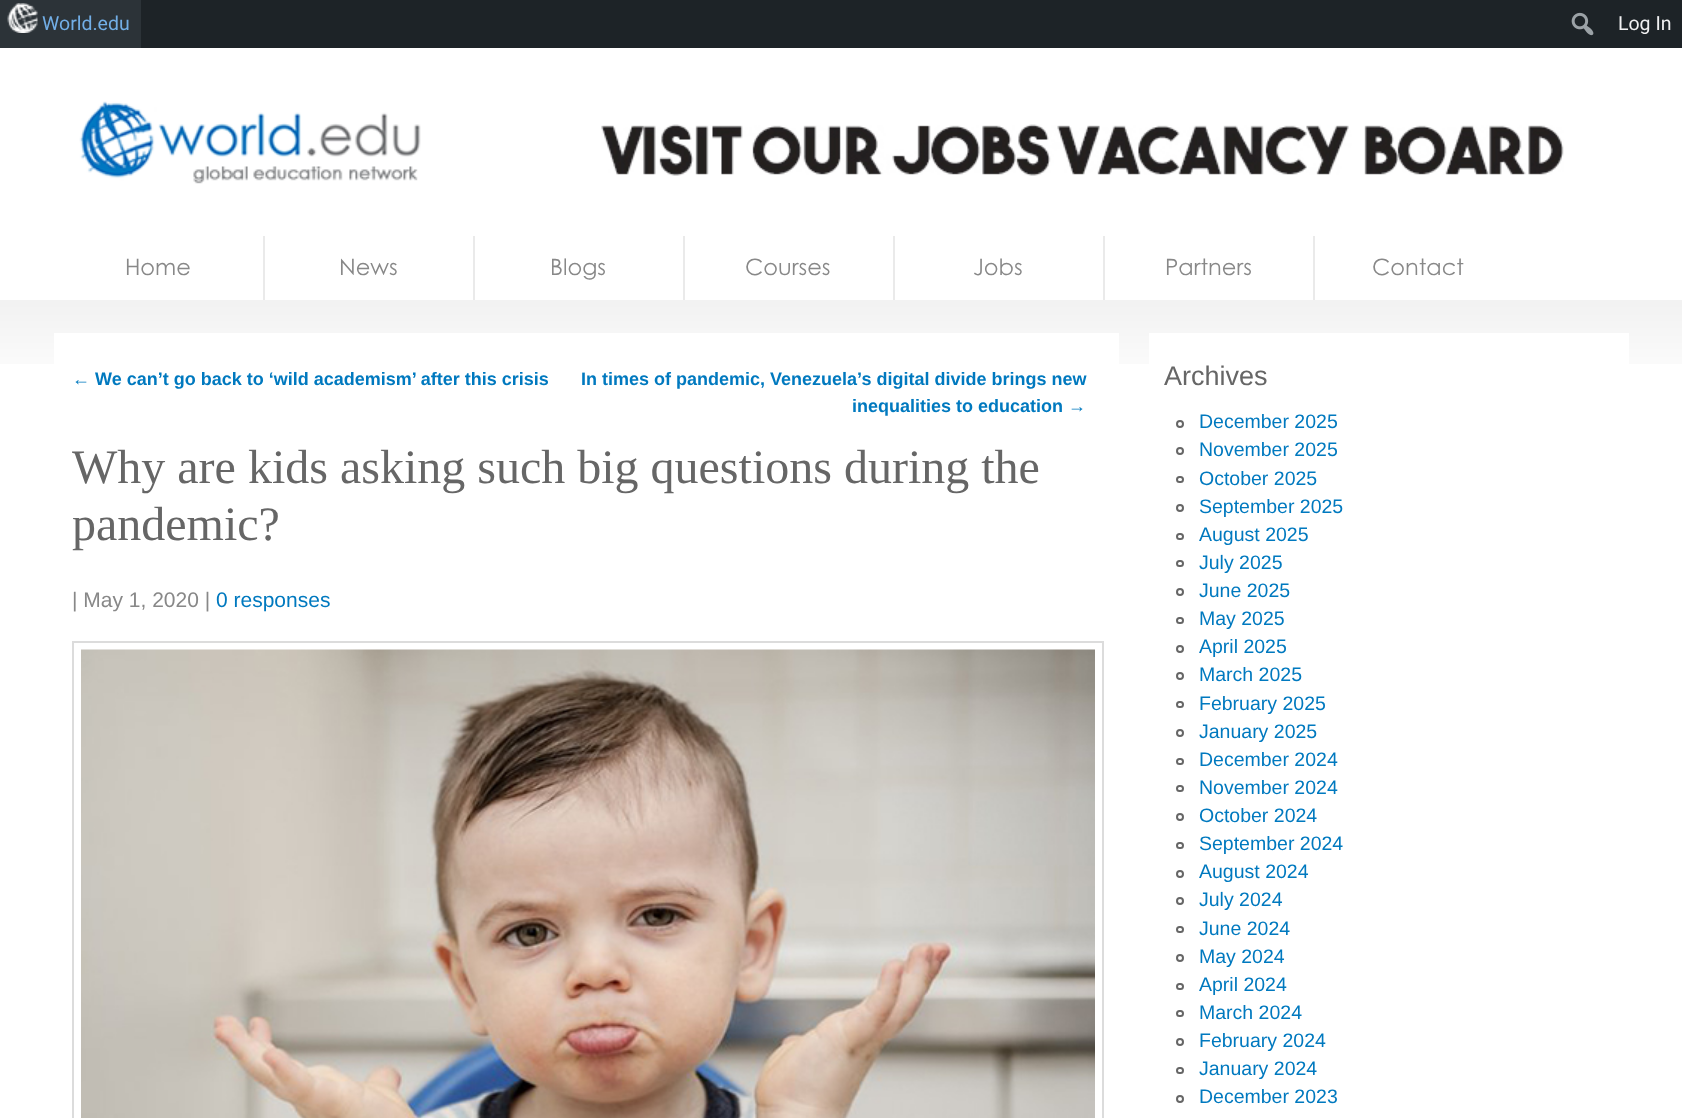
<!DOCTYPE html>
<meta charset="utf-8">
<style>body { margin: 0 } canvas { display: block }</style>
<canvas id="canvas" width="1682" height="1118"></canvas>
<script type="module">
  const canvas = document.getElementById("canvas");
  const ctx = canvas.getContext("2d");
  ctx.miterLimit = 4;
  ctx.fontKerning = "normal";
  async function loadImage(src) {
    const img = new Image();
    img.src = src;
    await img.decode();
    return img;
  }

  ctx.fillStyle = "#ffffff";
  ctx.fillRect(0, 0, 1682, 1118);
  ctx.fillStyle = "#1d2327";
  ctx.fillRect(141, 0, 1541, 48);
  ctx.drawImage(await loadImage("img1.png"), 1571, 12, 23, 24);
  ctx.fillStyle = "#2c3338";
  ctx.fillRect(0, 0, 141, 48);
  ctx.drawImage(await loadImage("img2.png"), 7, 3, 31, 30);
  ctx.font = "19.5px Roboto";
  ctx.fillStyle = "#72aee6";
  ctx.fillText("World.edu", 42, 30);
  ctx.fillStyle = "#f0f0f1";
  ctx.fillText("Log In", 1618, 30);
  ctx.drawImage(await loadImage("img3.png"), 79, 101, 342, 83);
  ctx.drawImage(await loadImage("img4.png"), 601, 124, 963, 52);
  ctx.fillStyle = "#eaeaea";
  ctx.fillRect(263, 236, 2, 64);
  ctx.font = "22.5px Century Gothic";
  ctx.fillStyle = "#888888";
  ctx.fillText("Home", 125, 275);
  ctx.fillStyle = "#eaeaea";
  ctx.fillRect(473, 236, 2, 64);
  ctx.fillStyle = "#888888";
  ctx.fillText("News", 339, 275);
  ctx.fillStyle = "#eaeaea";
  ctx.fillRect(683, 236, 2, 64);
  ctx.fillStyle = "#888888";
  ctx.fillText("Blogs", 550, 275);
  ctx.fillStyle = "#eaeaea";
  ctx.fillRect(893, 236, 2, 64);
  ctx.fillStyle = "#888888";
  ctx.fillText("Courses", 745, 275);
  ctx.fillStyle = "#eaeaea";
  ctx.fillRect(1103, 236, 2, 64);
  ctx.fillStyle = "#888888";
  ctx.fillText("Jobs", 973, 275);
  ctx.fillStyle = "#eaeaea";
  ctx.fillRect(1313, 236, 2, 64);
  ctx.fillStyle = "#888888";
  ctx.fillText("Partners", 1165, 275);
  ctx.fillText("Contact", 1372, 275);
  ctx.drawImage(await loadImage("img5.png"), 0, 300, 1682, 64);
  ctx.fillStyle = "#ffffff";
  ctx.fillRect(54, 333, 1065, 31);
  ctx.font = "bold 18px Liberation Sans";
  ctx.fillStyle = "#0079bf";
  ctx.fillText("← We can’t go back to ‘wild academism’ after this crisis", 72, 385);
  ctx.fillText("In times of pandemic, Venezuela’s digital divide brings new", 581, 385);
  ctx.fillText("inequalities to education →", 852, 412);
  ctx.font = "48px Liberation Serif";
  ctx.fillStyle = "#666666";
  ctx.fillText("Why are kids asking such big questions during the", 72, 483);
  ctx.fillText("pandemic?", 72, 540);
  ctx.font = "21px Liberation Sans";
  ctx.fillStyle = "#888888";
  ctx.fillText("| May 1, 2020 |", 72, 607);
  ctx.fillStyle = "#0079bf";
  ctx.fillText("0 responses", 216, 607);
  ctx.strokeStyle = "#dcdcdc";
  ctx.lineWidth = 2;
  ctx.strokeRect(73, 642, 1030, 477);
  ctx.drawImage(await loadImage("img6.png"), 81, 649, 1014, 469);
  ctx.fillStyle = "#ffffff";
  ctx.fillRect(1149, 333, 480, 31);
  ctx.font = "27px Liberation Sans";
  ctx.fillStyle = "#666666";
  ctx.fillText("Archives", 1164, 385);
  ctx.beginPath();
  ctx.arc(1180, 424, 3, 0, Math.PI * 2);
  ctx.strokeStyle = "#666666";
  ctx.stroke();
  ctx.font = "19.5px Liberation Sans";
  ctx.fillStyle = "#0079bf";
  ctx.fillText("December 2025", 1199, 428);
  ctx.beginPath();
  ctx.arc(1180, 451, 3, 0, Math.PI * 2);
  ctx.stroke();
  ctx.fillText("November 2025", 1199, 456);
  ctx.beginPath();
  ctx.roundRect(1177, 477, 6, 5, 2.5);
  ctx.stroke();
  ctx.fillText("October 2025", 1199, 485);
  ctx.beginPath();
  ctx.arc(1180, 508, 3, 0, Math.PI * 2);
  ctx.stroke();
  ctx.fillText("September 2025", 1199, 513);
  ctx.beginPath();
  ctx.roundRect(1177, 534, 6, 5, 2.5);
  ctx.stroke();
  ctx.fillText("August 2025", 1199, 541);
  ctx.beginPath();
  ctx.roundRect(1177, 561, 6, 5, 2.5);
  ctx.stroke();
  ctx.fillText("July 2025", 1199, 569);
  ctx.beginPath();
  ctx.arc(1180, 592, 3, 0, Math.PI * 2);
  ctx.stroke();
  ctx.fillText("June 2025", 1199, 597);
  ctx.beginPath();
  ctx.roundRect(1177, 618, 6, 5, 2.5);
  ctx.stroke();
  ctx.fillText("May 2025", 1199, 625);
  ctx.beginPath();
  ctx.arc(1180, 649, 3, 0, Math.PI * 2);
  ctx.stroke();
  ctx.fillText("April 2025", 1199, 653);
  ctx.beginPath();
  ctx.arc(1180, 676, 3, 0, Math.PI * 2);
  ctx.stroke();
  ctx.fillText("March 2025", 1199, 681);
  ctx.beginPath();
  ctx.roundRect(1177, 702, 6, 5, 2.5);
  ctx.stroke();
  ctx.fillText("February 2025", 1199, 710);
  ctx.beginPath();
  ctx.arc(1180, 733, 3, 0, Math.PI * 2);
  ctx.stroke();
  ctx.fillText("January 2025", 1199, 738);
  ctx.beginPath();
  ctx.roundRect(1177, 759, 6, 5, 2.5);
  ctx.stroke();
  ctx.fillText("December 2024", 1199, 766);
  ctx.beginPath();
  ctx.roundRect(1177, 786, 6, 5, 2.5);
  ctx.stroke();
  ctx.fillText("November 2024", 1199, 794);
  ctx.beginPath();
  ctx.arc(1180, 817, 3, 0, Math.PI * 2);
  ctx.stroke();
  ctx.fillText("October 2024", 1199, 822);
  ctx.beginPath();
  ctx.roundRect(1177, 843, 6, 5, 2.5);
  ctx.stroke();
  ctx.fillText("September 2024", 1199, 850);
  ctx.beginPath();
  ctx.arc(1180, 874, 3, 0, Math.PI * 2);
  ctx.stroke();
  ctx.fillText("August 2024", 1199, 878);
  ctx.beginPath();
  ctx.arc(1180, 901, 3, 0, Math.PI * 2);
  ctx.stroke();
  ctx.fillText("July 2024", 1199, 906);
  ctx.beginPath();
  ctx.roundRect(1177, 927, 6, 5, 2.5);
  ctx.stroke();
  ctx.fillText("June 2024", 1199, 935);
  ctx.beginPath();
  ctx.arc(1180, 958, 3, 0, Math.PI * 2);
  ctx.stroke();
  ctx.fillText("May 2024", 1199, 963);
  ctx.beginPath();
  ctx.roundRect(1177, 984, 6, 5, 2.5);
  ctx.stroke();
  ctx.fillText("April 2024", 1199, 991);
  ctx.beginPath();
  ctx.roundRect(1177, 1011, 6, 5, 2.5);
  ctx.stroke();
  ctx.fillText("March 2024", 1199, 1019);
  ctx.beginPath();
  ctx.arc(1180, 1042, 3, 0, Math.PI * 2);
  ctx.stroke();
  ctx.fillText("February 2024", 1199, 1047);
  ctx.beginPath();
  ctx.roundRect(1177, 1068, 6, 5, 2.5);
  ctx.stroke();
  ctx.fillText("January 2024", 1199, 1075);
  ctx.beginPath();
  ctx.arc(1180, 1099, 3, 0, Math.PI * 2);
  ctx.stroke();
  ctx.fillText("December 2023", 1199, 1103);
</script>
